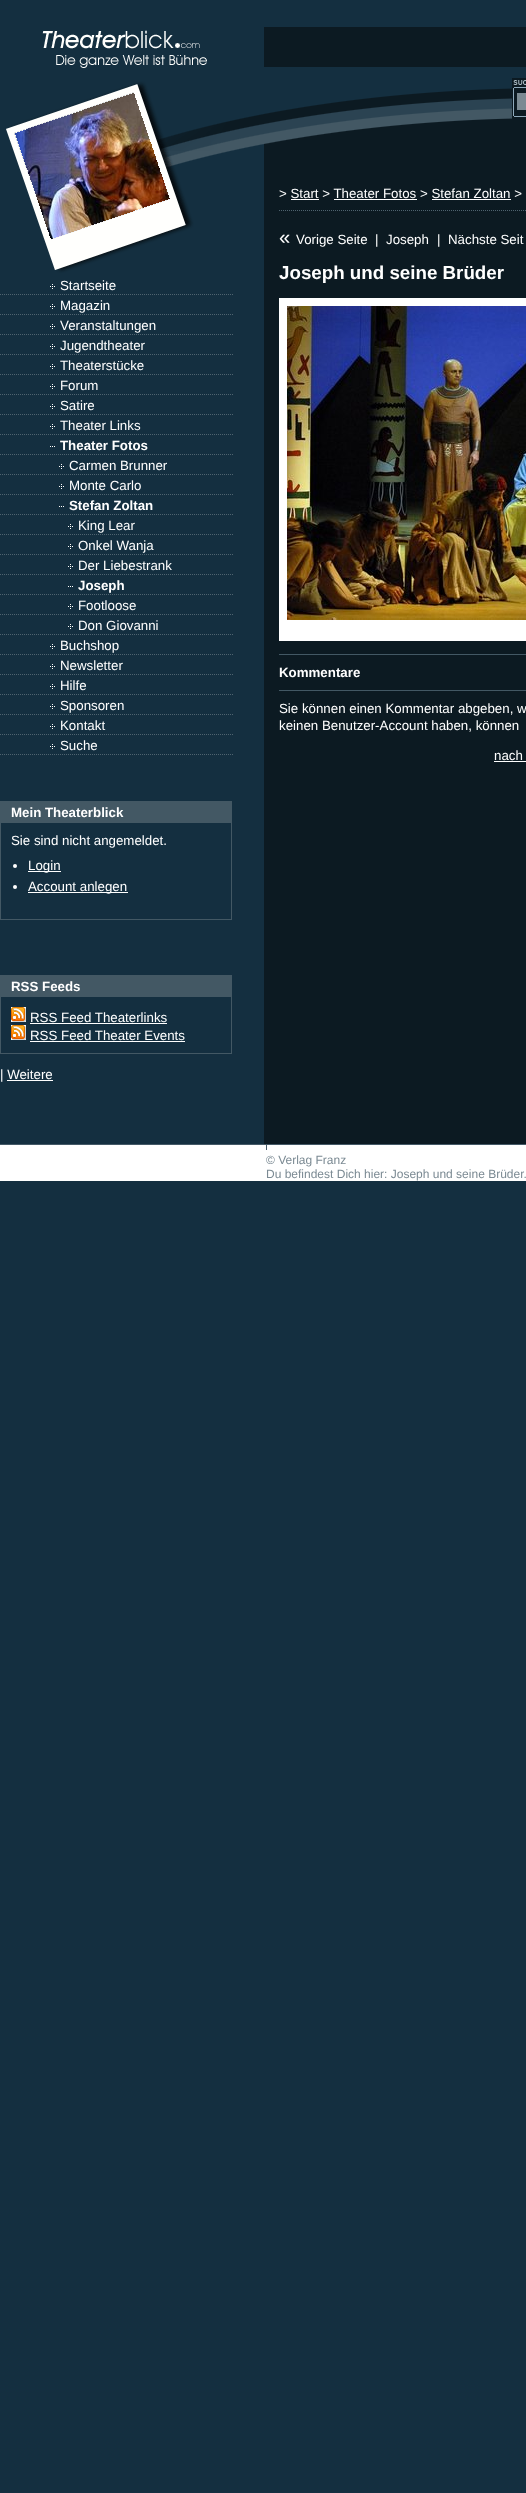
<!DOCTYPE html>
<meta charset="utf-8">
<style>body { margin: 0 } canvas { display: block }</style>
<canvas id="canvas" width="526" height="2493"></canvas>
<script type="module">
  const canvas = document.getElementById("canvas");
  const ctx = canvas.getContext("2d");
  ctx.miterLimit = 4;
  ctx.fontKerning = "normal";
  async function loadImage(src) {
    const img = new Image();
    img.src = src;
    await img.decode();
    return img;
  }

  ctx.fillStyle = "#142f40";
  ctx.fillRect(0, 0, 526, 2493);
  ctx.drawImage(await loadImage("img1.png"), 42, 30, 165, 38);
  ctx.fillStyle = "#0c1a22";
  ctx.fillRect(264, 27, 262, 40);
  ctx.drawImage(await loadImage("img2.png"), 15, 93, 155, 146);
  ctx.drawImage(await loadImage("img3.png"), 0, 78, 264, 197);
  ctx.drawImage(await loadImage("img4.png"), 0, 294, 233, 461);
  ctx.drawImage(await loadImage("img5.png"), 50, 284, 5, 5);
  ctx.font = "13.3px Liberation Sans";
  ctx.fillStyle = "#ffffff";
  ctx.fillText("Startseite", 60, 290);
  ctx.drawImage(await loadImage("img5.png"), 50, 304, 5, 5);
  ctx.fillText("Magazin", 60, 310);
  ctx.drawImage(await loadImage("img5.png"), 50, 324, 5, 5);
  ctx.fillText("Veranstaltungen", 60, 330);
  ctx.drawImage(await loadImage("img5.png"), 50, 344, 5, 5);
  ctx.fillText("Jugendtheater", 60, 350);
  ctx.drawImage(await loadImage("img5.png"), 50, 364, 5, 5);
  ctx.fillText("Theaterstücke", 60, 370);
  ctx.drawImage(await loadImage("img5.png"), 50, 384, 5, 5);
  ctx.fillText("Forum", 60, 390);
  ctx.drawImage(await loadImage("img5.png"), 50, 404, 5, 5);
  ctx.fillText("Satire", 60, 410);
  ctx.drawImage(await loadImage("img5.png"), 50, 424, 5, 5);
  ctx.fillText("Theater Links", 60, 430);
  ctx.drawImage(await loadImage("img6.png"), 50, 446, 5, 1);
  ctx.font = "bold 13.3px Liberation Sans";
  ctx.fillText("Theater Fotos", 60, 450);
  ctx.drawImage(await loadImage("img5.png"), 59, 464, 5, 5);
  ctx.font = "13.3px Liberation Sans";
  ctx.fillText("Carmen Brunner", 69, 470);
  ctx.drawImage(await loadImage("img5.png"), 59, 484, 5, 5);
  ctx.fillText("Monte Carlo", 69, 490);
  ctx.drawImage(await loadImage("img6.png"), 59, 506, 5, 1);
  ctx.font = "bold 13.3px Liberation Sans";
  ctx.fillText("Stefan Zoltan", 69, 510);
  ctx.drawImage(await loadImage("img5.png"), 68, 524, 5, 5);
  ctx.font = "13.3px Liberation Sans";
  ctx.fillText("King Lear", 78, 530);
  ctx.drawImage(await loadImage("img5.png"), 68, 544, 5, 5);
  ctx.fillText("Onkel Wanja", 78, 550);
  ctx.drawImage(await loadImage("img5.png"), 68, 564, 5, 5);
  ctx.fillText("Der Liebestrank", 78, 570);
  ctx.drawImage(await loadImage("img6.png"), 68, 586, 5, 1);
  ctx.font = "bold 13.3px Liberation Sans";
  ctx.fillText("Joseph", 78, 590);
  ctx.drawImage(await loadImage("img5.png"), 68, 604, 5, 5);
  ctx.font = "13.3px Liberation Sans";
  ctx.fillText("Footloose", 78, 610);
  ctx.drawImage(await loadImage("img5.png"), 68, 624, 5, 5);
  ctx.fillText("Don Giovanni", 78, 630);
  ctx.drawImage(await loadImage("img5.png"), 50, 644, 5, 5);
  ctx.fillText("Buchshop", 60, 650);
  ctx.drawImage(await loadImage("img5.png"), 50, 664, 5, 5);
  ctx.fillText("Newsletter", 60, 670);
  ctx.drawImage(await loadImage("img5.png"), 50, 684, 5, 5);
  ctx.fillText("Hilfe", 60, 690);
  ctx.drawImage(await loadImage("img5.png"), 50, 704, 5, 5);
  ctx.fillText("Sponsoren", 60, 710);
  ctx.drawImage(await loadImage("img5.png"), 50, 724, 5, 5);
  ctx.fillText("Kontakt", 60, 730);
  ctx.drawImage(await loadImage("img5.png"), 50, 744, 5, 5);
  ctx.fillText("Suche", 60, 750);
  ctx.strokeStyle = "#435864";
  ctx.strokeRect(0.5, 801.5, 231, 118);
  ctx.fillStyle = "#435864";
  ctx.fillRect(1, 802, 230, 21);
  ctx.font = "bold 13.3px Liberation Sans";
  ctx.fillStyle = "#ffffff";
  ctx.fillText("Mein Theaterblick", 11, 817);
  ctx.font = "13.3px Liberation Sans";
  ctx.fillText("Sie sind nicht angemeldet.", 11, 845);
  ctx.beginPath();
  ctx.arc(15, 866, 2, 0, Math.PI * 2);
  ctx.fill();
  ctx.fillRect(28, 871, 33, 1);
  ctx.fillText("Login", 28, 870);
  ctx.beginPath();
  ctx.arc(15, 887, 2, 0, Math.PI * 2);
  ctx.fill();
  ctx.fillRect(28, 892, 100, 1);
  ctx.fillText("Account anlegen", 28, 891);
  ctx.strokeRect(0.5, 975.5, 231, 78);
  ctx.fillStyle = "#435864";
  ctx.fillRect(1, 976, 230, 21);
  ctx.font = "bold 13.3px Liberation Sans";
  ctx.fillStyle = "#ffffff";
  ctx.fillText("RSS Feeds", 11, 991);
  ctx.drawImage(await loadImage("img7.png"), 11, 1007, 15, 15);
  ctx.font = "13.3px Liberation Sans";
  ctx.fillText("RSS Feed Theaterlinks", 30, 1022);
  ctx.fillRect(30, 1023, 137, 1);
  ctx.drawImage(await loadImage("img7.png"), 11, 1025, 15, 15);
  ctx.fillText("RSS Feed Theater Events", 30, 1040);
  ctx.fillRect(30, 1041, 155, 1);
  ctx.fillText("| Weitere", 0, 1079);
  ctx.fillRect(7, 1080, 46, 1);
  ctx.fillStyle = "#0c1a22";
  ctx.fillRect(264, 144, 262, 1000);
  ctx.drawImage(await loadImage("img8.png"), 264, 78, 262, 66);
  ctx.drawImage(await loadImage("img9.png"), 512, 78, 14, 41);
  ctx.fillStyle = "#7b8a93";
  ctx.fillRect(517, 93, 9, 17);
  ctx.drawImage(await loadImage("img10.png"), 279, 210, 247, 1);
  ctx.fillStyle = "#ffffff";
  ctx.fillText("> Start > Theater Fotos > Stefan Zoltan >", 279, 198);
  ctx.fillRect(291, 199, 28, 1);
  ctx.fillRect(334, 199, 83, 1);
  ctx.fillRect(432, 199, 79, 1);
  ctx.font = "20px Liberation Sans";
  ctx.fillText("«", 279, 244);
  ctx.font = "13.3px Liberation Sans";
  ctx.fillText("Vorige Seite", 296, 244);
  ctx.fillText("|", 375, 244);
  ctx.fillText("Joseph", 386, 244);
  ctx.fillText("|", 437, 244);
  ctx.fillText("Nächste Seit", 448, 244);
  ctx.font = "bold 18.75px Liberation Sans";
  ctx.fillText("Joseph und seine Brüder", 279, 279);
  ctx.fillRect(279, 298, 247, 8);
  ctx.fillRect(287, 620, 239, 21);
  ctx.fillRect(279, 298, 8, 343);
  ctx.drawImage(await loadImage("img11.png"), 287, 306, 239, 314);
  ctx.fillStyle = "#435864";
  ctx.fillRect(279, 654, 247, 1);
  ctx.font = "bold 13.3px Liberation Sans";
  ctx.fillStyle = "#ffffff";
  ctx.fillText("Kommentare", 279, 677);
  ctx.fillStyle = "#435864";
  ctx.fillRect(279, 690, 247, 1);
  ctx.font = "13.3px Liberation Sans";
  ctx.fillStyle = "#ffffff";
  ctx.fillText("Sie können einen Kommentar abgeben, w", 279, 713);
  ctx.fillText("keinen Benutzer-Account haben, können", 279, 730);
  ctx.fillText("nach", 494, 760);
  ctx.fillRect(494, 761, 32, 1);
  ctx.drawImage(await loadImage("img12.png"), 0, 1144, 526, 9);
  ctx.fillRect(0, 1153, 526, 28);
  ctx.font = "12px Liberation Sans";
  ctx.fillStyle = "#7b8a93";
  ctx.fillText("© Verlag Franz", 266, 1164);
  ctx.fillText("Du befindest Dich hier: Joseph und seine Brüder.", 266, 1178);
</script>
